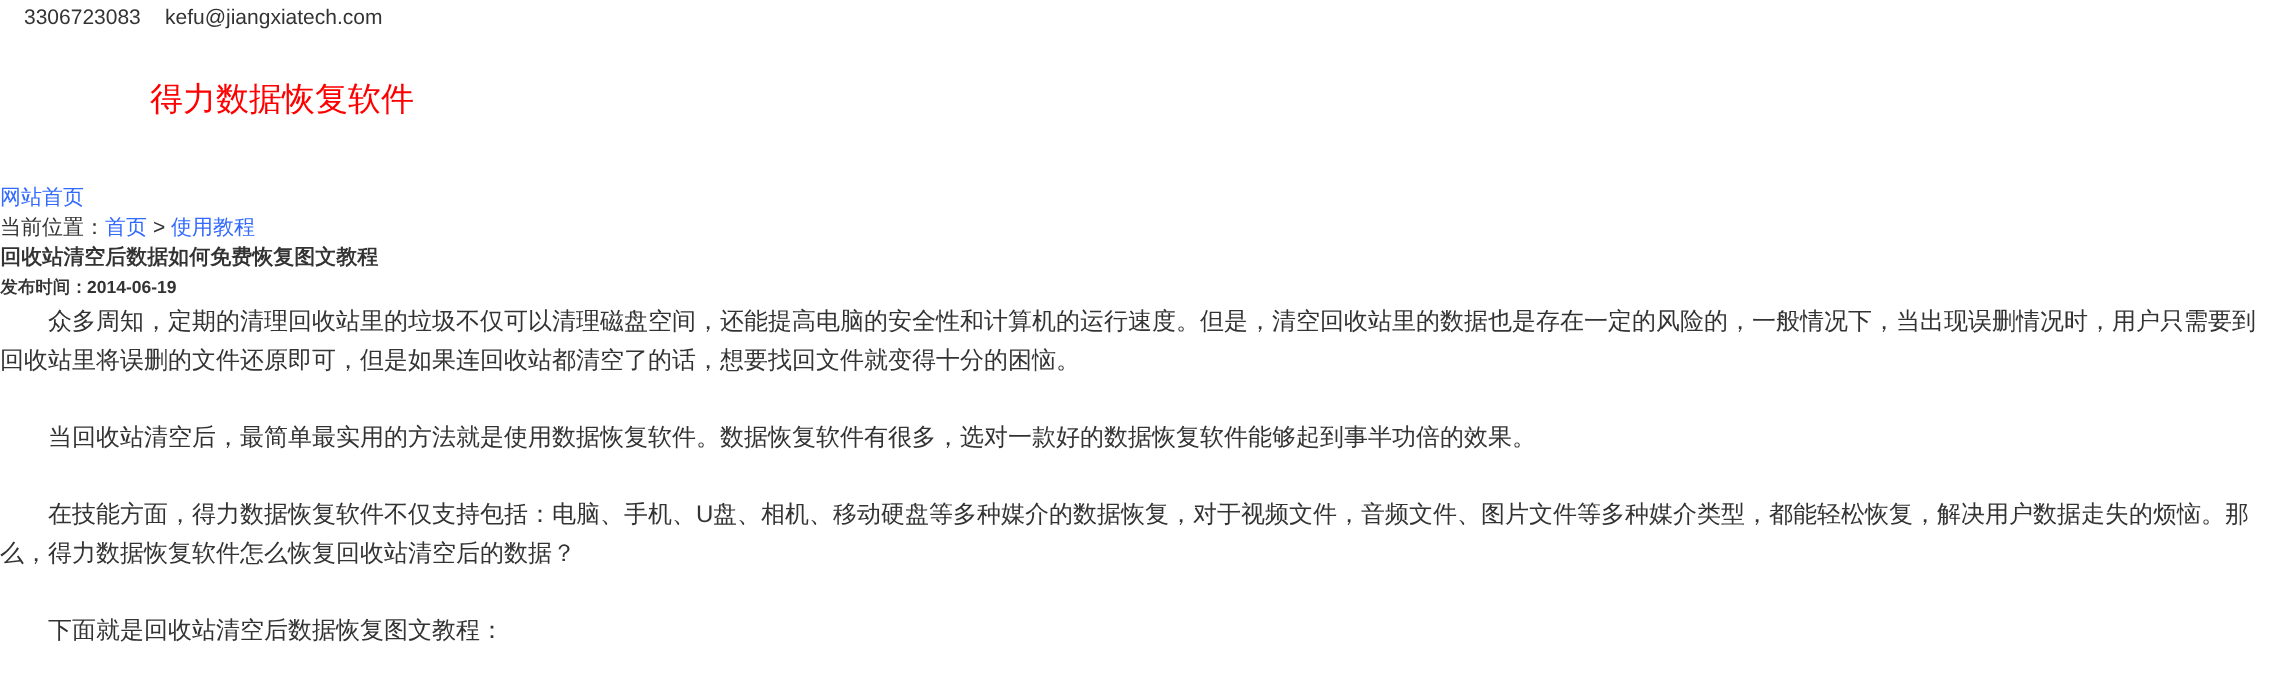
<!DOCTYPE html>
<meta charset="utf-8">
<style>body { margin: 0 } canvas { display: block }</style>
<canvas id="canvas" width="2276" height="694"></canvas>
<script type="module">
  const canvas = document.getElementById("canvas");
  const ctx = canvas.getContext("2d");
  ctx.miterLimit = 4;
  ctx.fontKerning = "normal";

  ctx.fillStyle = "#ffffff";
  ctx.fillRect(0, 0, 2276, 694);
  ctx.font = "21px Liberation Sans";
  ctx.fillStyle = "#333333";
  ctx.fillText("3306723083", 24, 24);
  ctx.fillText("kefu@jiangxiatech.com", 165, 24);
  ctx.font = "500 33px WenQuanYi Zen Hei";
  ctx.fillStyle = "#ff0000";
  ctx.fillText("得力数据恢复软件", 150, 110);
  ctx.font = "500 21px WenQuanYi Zen Hei";
  ctx.fillStyle = "#326aff";
  ctx.fillText("网站首页", 0, 204);
  ctx.fillStyle = "#333333";
  ctx.fillText("当前位置：", 0, 234);
  ctx.fillStyle = "#326aff";
  ctx.fillText("首页", 105, 234);
  ctx.font = "21px Liberation Sans";
  ctx.fillStyle = "#333333";
  ctx.fillText(">", 153, 234);
  ctx.font = "500 21px WenQuanYi Zen Hei";
  ctx.fillStyle = "#326aff";
  ctx.fillText("使用教程", 171, 234);
  ctx.font = "bold 21px WenQuanYi Zen Hei";
  ctx.fillStyle = "#333333";
  ctx.fillText("回收站清空后数据如何免费恢复图文教程", 0, 264);
  ctx.font = "bold 17.5px WenQuanYi Zen Hei";
  ctx.fillText("发布时间：", 0, 293);
  ctx.font = "bold 17.5px Liberation Sans";
  ctx.fillText("2014-06-19", 87, 293);
  ctx.font = "500 24px WenQuanYi Zen Hei";
  ctx.fillText("众多周知，定期的清理回收站里的垃圾不仅可以清理磁盘空间，还能提高电脑的安全性和计算机的运行速度。但是，清空回收站里的数据也是存在一定的风险的，一般情况下，当出现误删情况时，用户只需要到", 48, 329);
  ctx.fillText("回收站里将误删的文件还原即可，但是如果连回收站都清空了的话，想要找回文件就变得十分的困恼。", 0, 368);
  ctx.fillText("当回收站清空后，最简单最实用的方法就是使用数据恢复软件。数据恢复软件有很多，选对一款好的数据恢复软件能够起到事半功倍的效果。", 48, 445);
  ctx.fillText("在技能方面，得力数据恢复软件不仅支持包括：电脑、手机、", 48, 522);
  ctx.font = "24px Liberation Sans";
  ctx.fillText("U", 696, 522);
  ctx.font = "500 24px WenQuanYi Zen Hei";
  ctx.fillText("盘、相机、移动硬盘等多种媒介的数据恢复，对于视频文件，音频文件、图片文件等多种媒介类型，都能轻松恢复，解决用户数据走失的烦恼。那", 713, 522);
  ctx.fillText("么，得力数据恢复软件怎么恢复回收站清空后的数据？", 0, 561);
  ctx.fillText("下面就是回收站清空后数据恢复图文教程：", 48, 638);
</script>
